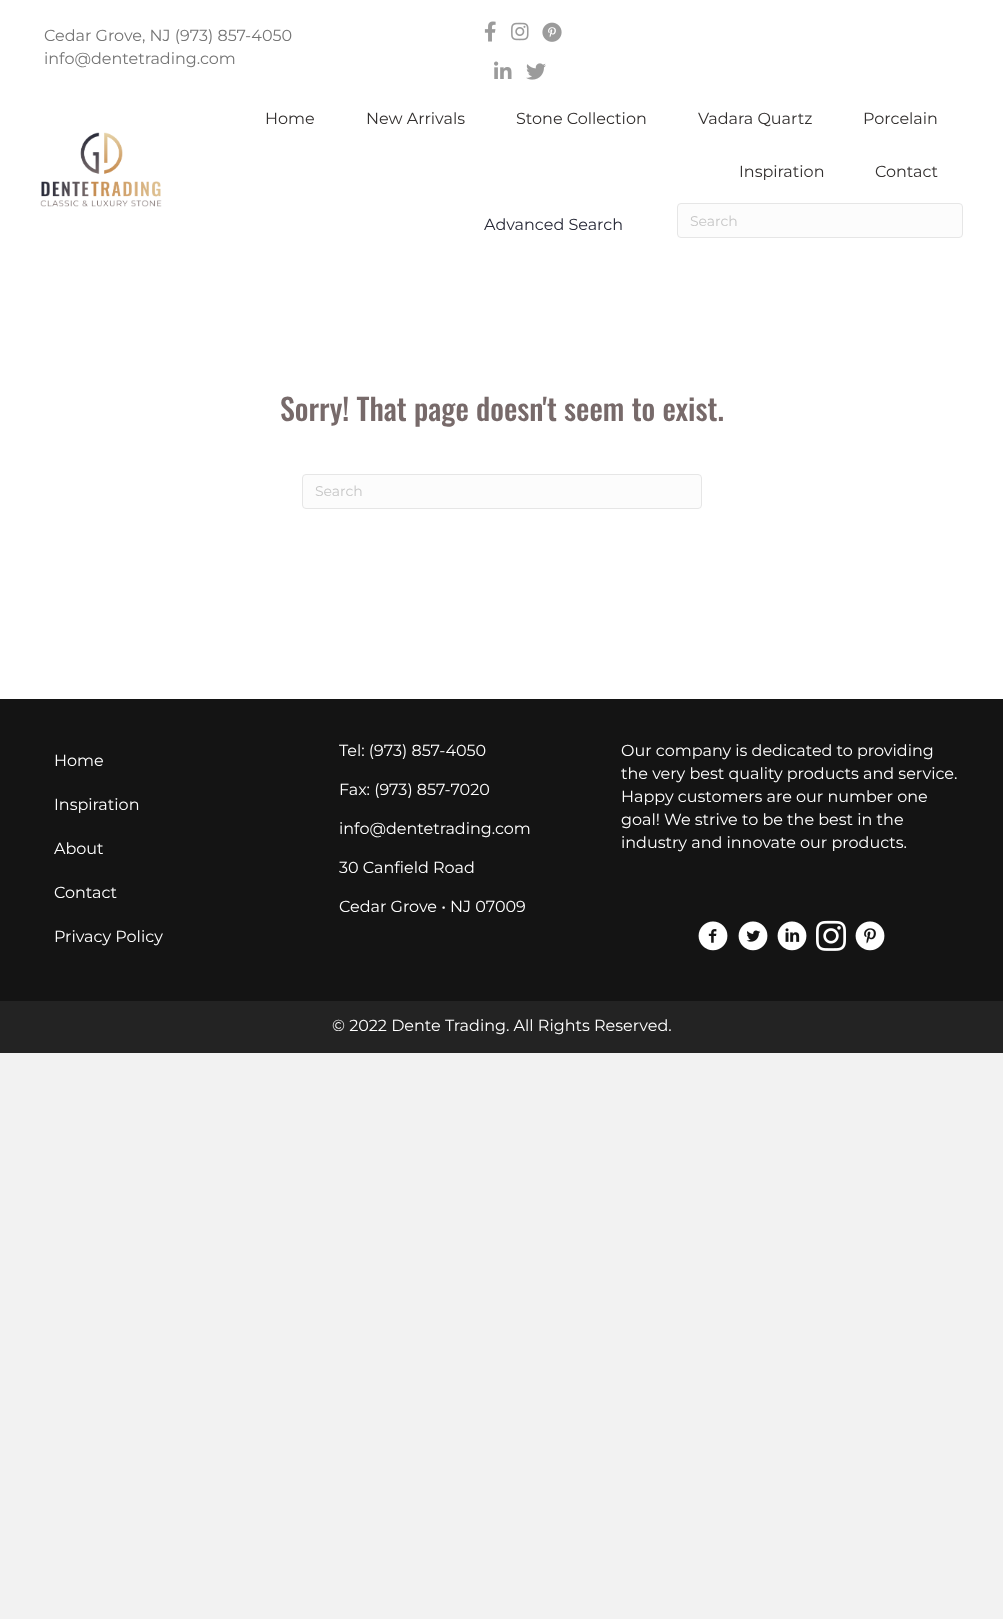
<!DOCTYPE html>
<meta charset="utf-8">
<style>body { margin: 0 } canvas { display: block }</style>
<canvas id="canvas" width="1003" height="1619"></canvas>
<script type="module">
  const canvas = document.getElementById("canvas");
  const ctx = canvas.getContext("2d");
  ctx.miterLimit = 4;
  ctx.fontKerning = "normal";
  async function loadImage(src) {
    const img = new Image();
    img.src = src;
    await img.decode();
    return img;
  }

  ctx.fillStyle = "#f2f2f2";
  ctx.fillRect(0, 0, 1003, 1619);
  ctx.fillStyle = "#ffffff";
  ctx.fillRect(0, 0, 1003, 247);
  ctx.font = "16px Montserrat";
  ctx.fillStyle = "#757575";
  ctx.fillText("Cedar Grove, NJ (973) 857-4050", 44, 41);
  ctx.fillText("info@dentetrading.com", 44, 64);
  ctx.drawImage(await loadImage("img1.png"), 484, 21, 12, 21);
  ctx.drawImage(await loadImage("img2.png"), 511, 22, 18, 19);
  ctx.drawImage(await loadImage("img3.png"), 542, 22, 20, 20);
  ctx.drawImage(await loadImage("img4.png"), 494, 61, 18, 18);
  ctx.drawImage(await loadImage("img5.png"), 526, 63, 20, 17);
  ctx.drawImage(await loadImage("img6.png"), 40, 132, 122, 75);
  ctx.fillStyle = "#33302f";
  ctx.fillText("Home", 265, 124);
  ctx.fillText("New Arrivals", 366, 124);
  ctx.fillText("Stone Collection", 516, 124);
  ctx.fillText("Vadara Quartz", 698, 124);
  ctx.fillText("Porcelain", 863, 124);
  ctx.fillText("Inspiration", 739, 177);
  ctx.fillText("Contact", 875, 177);
  ctx.fillStyle = "#272937";
  ctx.fillText("Advanced Search", 484, 230);
  ctx.fillStyle = "#fcfcfc";
  ctx.beginPath();
  ctx.roundRect(677.5, 203.5, 285, 34, 3.5);
  ctx.fill();
  ctx.strokeStyle = "#e6e6e6";
  ctx.stroke();
  ctx.font = "14px Montserrat";
  ctx.fillStyle = "#c6c6c6";
  ctx.fillText("Search", 690, 226);
  ctx.fillStyle = "#ffffff";
  ctx.fillRect(0, 247, 1003, 452);
  ctx.font = "500 30px Oswald";
  ctx.fillStyle = "#776a6a";
  ctx.fillText("Sorry! That page doesn't seem to exist.", 280, 421);
  ctx.fillStyle = "#fcfcfc";
  ctx.beginPath();
  ctx.roundRect(302.5, 474.5, 399, 34, 3.5);
  ctx.fill();
  ctx.stroke();
  ctx.font = "14px Montserrat";
  ctx.fillStyle = "#c6c6c6";
  ctx.fillText("Search", 315, 496);
  ctx.fillStyle = "#141414";
  ctx.fillRect(0, 699, 1003, 302);
  ctx.font = "16px Montserrat";
  ctx.fillStyle = "#ffffff";
  ctx.fillText("Home", 54, 766);
  ctx.fillText("Inspiration", 54, 810);
  ctx.fillText("About", 54, 854);
  ctx.fillText("Contact", 54, 898);
  ctx.fillText("Privacy Policy", 54, 942);
  ctx.fillText("Tel: (973) 857-4050", 339, 756);
  ctx.fillText("Fax: (973) 857-7020", 339, 795);
  ctx.fillText("info@dentetrading.com", 339, 834);
  ctx.fillText("30 Canfield Road", 339, 873);
  ctx.fillText("Cedar Grove • NJ 07009", 339, 912);
  ctx.fillText("Our company is dedicated to providing", 621, 756);
  ctx.fillText("the very best quality products and service.", 621, 779);
  ctx.fillText("Happy customers are our number one", 621, 802);
  ctx.fillText("goal! We strive to be the best in the", 621, 825);
  ctx.fillText("industry and innovate our products.", 621, 848);
  ctx.drawImage(await loadImage("img7.png"), 698, 921, 30, 30);
  ctx.drawImage(await loadImage("img8.png"), 738, 921, 30, 30);
  ctx.drawImage(await loadImage("img9.png"), 777, 921, 30, 30);
  ctx.drawImage(await loadImage("img10.png"), 816, 920, 30, 31);
  ctx.drawImage(await loadImage("img11.png"), 855, 921, 30, 30);
  ctx.fillStyle = "#232323";
  ctx.fillRect(0, 1001, 1003, 52);
  ctx.fillStyle = "#ffffff";
  ctx.fillText("© 2022 Dente Trading. All Rights Reserved.", 332, 1031);
</script>
